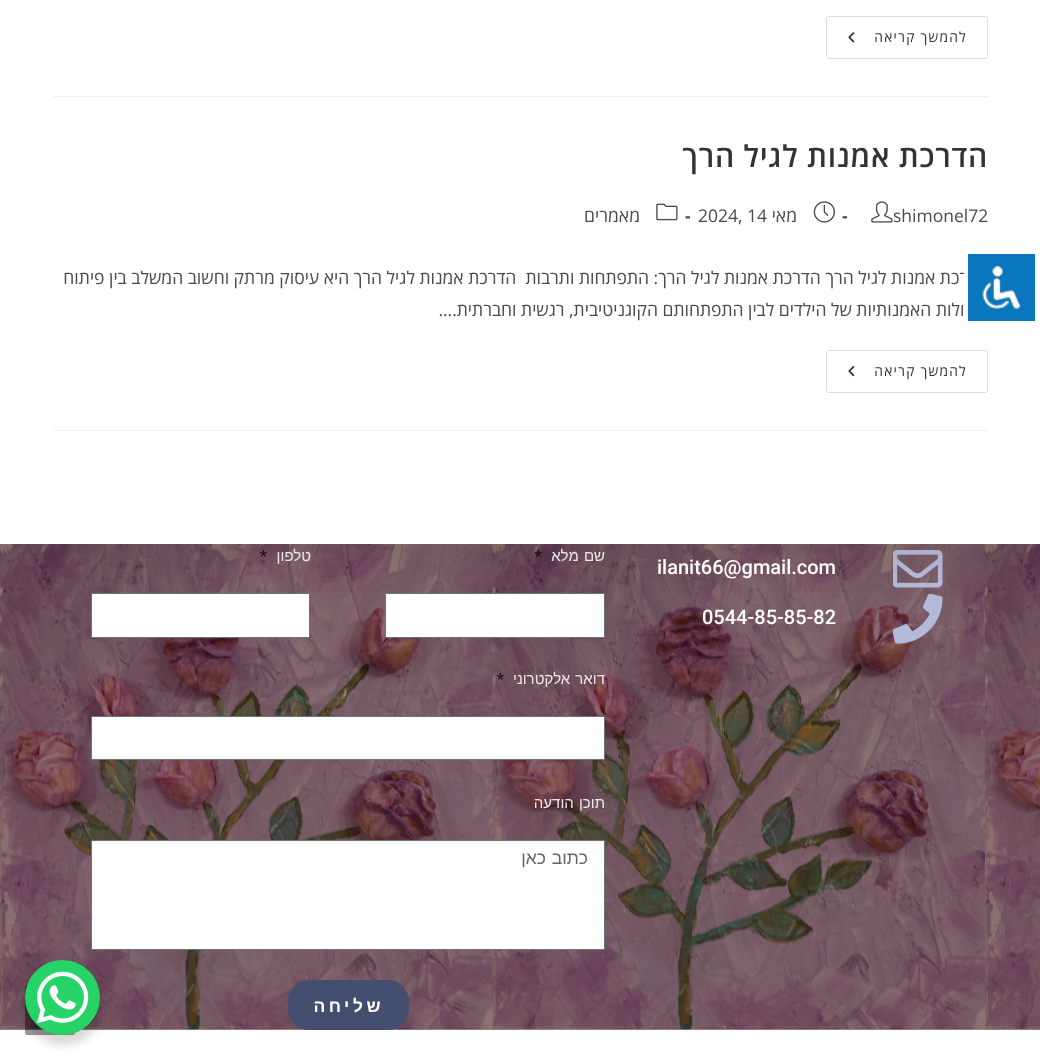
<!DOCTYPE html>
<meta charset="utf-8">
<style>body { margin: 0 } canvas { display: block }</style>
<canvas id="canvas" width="1040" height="1059"></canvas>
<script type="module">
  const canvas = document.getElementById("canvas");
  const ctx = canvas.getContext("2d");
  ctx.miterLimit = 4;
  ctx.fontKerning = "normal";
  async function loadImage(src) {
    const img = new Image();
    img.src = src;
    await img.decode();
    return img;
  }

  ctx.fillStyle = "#ffffff";
  ctx.fillRect(0, 0, 1040, 1059);
  ctx.fillStyle = "#b49d9d";
  ctx.fillRect(0, 1029, 1040, 1);
  ctx.drawImage(await loadImage("img7.png"), 0, 544, 1040, 486);
  ctx.drawImage(await loadImage("img8.png"), 893, 550, 50, 38);
  ctx.drawImage(await loadImage("img9.png"), 893, 594, 50, 50);
  ctx.fillStyle = "#ffffff";
  ctx.beginPath();
  ctx.rect(385.5, 593.5, 219, 44);
  ctx.fill();
  ctx.strokeStyle = "#69727d";
  ctx.stroke();
  ctx.beginPath();
  ctx.rect(91.5, 593.5, 218, 44);
  ctx.fill();
  ctx.stroke();
  ctx.fillStyle = "rgba(0, 0, 0, 0.1)";
  ctx.filter = "blur(25px)";
  ctx.beginPath();
  ctx.rect(0, -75, 1040, 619);
  ctx.fill();
  ctx.filter = "none";
  ctx.fillStyle = "#ffffff";
  ctx.fillRect(0, 0, 1040, 544);
  ctx.direction = "rtl";
  ctx.font = "17.5px Open Sans";
  ctx.fillStyle = "#4a4a4a";
  ctx.fillText("הדרכת אמנות לגיל הרך הדרכת אמנות לגיל הרך: התפתחות ותרבות  הדרכת אמנות לגיל הרך היא עיסוק מרתק וחשוב המשלב בין פיתוח", 988, 284);
  ctx.fillText("היכולות האמנותיות של הילדים לבין התפתחותם הקוגניטיבית, רגשית וחברתית.…", 988, 316);
  ctx.fillStyle = "#0a76be";
  ctx.beginPath();
  ctx.roundRect(966, 252, 71, 71, 0.5);
  ctx.fill();
  ctx.strokeStyle = "#ffffff";
  ctx.lineWidth = 4;
  ctx.stroke();
  ctx.drawImage(await loadImage("img1.png"), 982, 266, 39, 44);
  ctx.fillStyle = "#f1f1f1";
  ctx.fillRect(53, 96, 935, 1);
  ctx.beginPath();
  ctx.roundRect(826.5, 16.5, 161, 42, 2);
  ctx.strokeStyle = "#dddddd";
  ctx.lineWidth = 1;
  ctx.stroke();
  ctx.letterSpacing = "1.25px";
  ctx.font = "13.75px Open Sans";
  ctx.fillStyle = "#333333";
  ctx.fillText("להמשך קריאה", 967, 42);
  ctx.drawImage(await loadImage("img2.png"), 848, 32, 7, 11);
  ctx.fillStyle = "#f1f1f1";
  ctx.fillRect(53, 430, 935, 1);
  ctx.letterSpacing = "0.75px";
  ctx.font = "600 30px Open Sans";
  ctx.fillStyle = "#333333";
  ctx.fillText("הדרכת אמנות לגיל הרך", 988, 167);
  ctx.letterSpacing = "0px";
  ctx.direction = "ltr";
  ctx.font = "17.5px Open Sans";
  ctx.fillStyle = "#4a4a4a";
  ctx.fillText("shimonel72", 893, 222);
  ctx.drawImage(await loadImage("img3.png"), 871, 201, 22, 22);
  ctx.font = "bold 17.5px Open Sans";
  ctx.fillText("-", 842, 222);
  ctx.drawImage(await loadImage("img4.png"), 813, 201, 22, 22);
  ctx.direction = "rtl";
  ctx.font = "17.5px Open Sans";
  ctx.fillText("מאי", 797, 222);
  ctx.direction = "ltr";
  ctx.fillText("2024, 14", 698, 222);
  ctx.font = "bold 17.5px Open Sans";
  ctx.fillText("-", 685, 222);
  ctx.drawImage(await loadImage("img5.png"), 656, 203, 22, 18);
  ctx.direction = "rtl";
  ctx.font = "17.5px Open Sans";
  ctx.fillText("מאמרים", 640, 222);
  ctx.beginPath();
  ctx.roundRect(826.5, 350.5, 161, 42, 2);
  ctx.stroke();
  ctx.letterSpacing = "1.25px";
  ctx.font = "13.75px Open Sans";
  ctx.fillStyle = "#333333";
  ctx.fillText("להמשך קריאה", 967, 376);
  ctx.drawImage(await loadImage("img6.png"), 848, 366, 7, 11);
  ctx.letterSpacing = "0px";
  ctx.direction = "ltr";
  ctx.font = "500 20px Roboto";
  ctx.fillStyle = "#ffffff";
  ctx.fillText("ilanit66@gmail.com", 657, 574);
  ctx.fillText("0544-85-85-82", 702, 624);
  ctx.wordSpacing = "1px";
  ctx.direction = "rtl";
  ctx.font = "15px Liberation Sans";
  ctx.fillStyle = "#f0e8e8";
  ctx.fillText("שם מלא", 605, 561);
  ctx.wordSpacing = "0px";
  ctx.direction = "ltr";
  ctx.font = "15px Work Sans";
  ctx.fillStyle = "#000000";
  ctx.fillText("*", 534, 561);
  ctx.direction = "rtl";
  ctx.font = "15px Liberation Sans";
  ctx.fillStyle = "#f0e8e8";
  ctx.fillText("טלפון", 311, 561);
  ctx.direction = "ltr";
  ctx.font = "15px Work Sans";
  ctx.fillStyle = "#000000";
  ctx.fillText("*", 259, 561);
  ctx.wordSpacing = "1px";
  ctx.direction = "rtl";
  ctx.font = "15px Liberation Sans";
  ctx.fillStyle = "#f0e8e8";
  ctx.fillText("דואר אלקטרוני", 605, 684);
  ctx.wordSpacing = "0px";
  ctx.direction = "ltr";
  ctx.font = "15px Work Sans";
  ctx.fillStyle = "#000000";
  ctx.fillText("*", 496, 684);
  ctx.fillStyle = "#ffffff";
  ctx.beginPath();
  ctx.rect(91.5, 716.5, 513, 43);
  ctx.fill();
  ctx.strokeStyle = "#69727d";
  ctx.stroke();
  ctx.wordSpacing = "1px";
  ctx.direction = "rtl";
  ctx.font = "15px Liberation Sans";
  ctx.fillStyle = "#f0e8e8";
  ctx.fillText("תוכן הודעה", 605, 808);
  ctx.fillStyle = "#ffffff";
  ctx.beginPath();
  ctx.rect(91.5, 840.5, 513, 109);
  ctx.fill();
  ctx.stroke();
  ctx.font = "17.5px Liberation Sans";
  ctx.fillStyle = "#666666";
  ctx.fillText("כתוב כאן", 588, 864);
  ctx.fillStyle = "#444e6f";
  ctx.beginPath();
  ctx.roundRect(288, 980, 121, 50, 21);
  ctx.fill();
  ctx.letterSpacing = "3.5px";
  ctx.wordSpacing = "0px";
  ctx.font = "bold 17.5px Liberation Sans";
  ctx.fillStyle = "#ffffff";
  ctx.fillText("שליחה", 384, 1012);
  ctx.fillStyle = "rgba(0, 0, 0, 0.4)";
  ctx.beginPath();
  ctx.roundRect(25, 985, 50, 50, 2.5);
  ctx.fill();
  ctx.fillStyle = "rgba(0, 0, 0, 0.15)";
  ctx.filter = "blur(5px)";
  ctx.beginPath();
  ctx.roundRect(23, 965, 80, 80, 40);
  ctx.fill();
  ctx.filter = "none";
  ctx.fillStyle = "#25d366";
  ctx.beginPath();
  ctx.arc(62.5, 997.5, 37.5, 0, Math.PI * 2);
  ctx.fill();
  ctx.drawImage(await loadImage("img10.png"), 37, 971, 52, 53);
</script>
